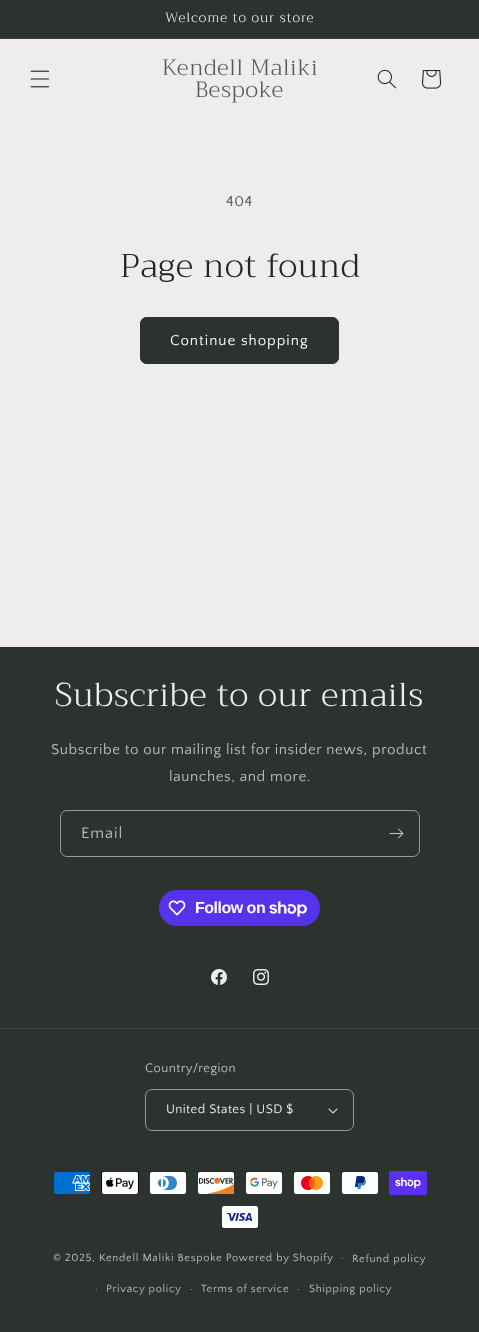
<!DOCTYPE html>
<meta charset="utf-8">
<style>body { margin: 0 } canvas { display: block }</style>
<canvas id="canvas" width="479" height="1332"></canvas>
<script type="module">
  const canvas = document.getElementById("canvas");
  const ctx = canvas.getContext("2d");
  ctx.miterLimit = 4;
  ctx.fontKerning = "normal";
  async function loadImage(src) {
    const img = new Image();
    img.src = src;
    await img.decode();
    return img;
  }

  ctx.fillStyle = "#efecec";
  ctx.fillRect(0, 0, 479, 1332);
  ctx.fillStyle = "#2c332f";
  ctx.fillRect(0, 0, 479, 38);
  ctx.fillStyle = "#3c423e";
  ctx.fillRect(0, 38, 479, 1);
  ctx.letterSpacing = "1px";
  ctx.font = "300 13.25px Trirong";
  ctx.fillStyle = "#efecec";
  ctx.fillText("Welcome to our store", 165, 22);
  ctx.drawImage(await loadImage("img1.png"), 30, 70, 20, 18);
  ctx.letterSpacing = "0.7px";
  ctx.font = "300 22px Trirong";
  ctx.fillStyle = "#585757";
  ctx.fillText("Kendell Maliki", 162, 75);
  ctx.fillText("Bespoke", 195, 97);
  ctx.drawImage(await loadImage("img2.png"), 377, 69, 19, 20);
  ctx.drawImage(await loadImage("img3.png"), 422, 70, 20, 19);
  ctx.letterSpacing = "0.6px";
  ctx.font = "15px Quattrocento Sans";
  ctx.fillText("404", 226, 206);
  ctx.letterSpacing = "0.7px";
  ctx.font = "300 33px Trirong";
  ctx.fillStyle = "#252525";
  ctx.fillText("Page not found", 120, 277);
  ctx.fillStyle = "#2c332f";
  ctx.beginPath();
  ctx.roundRect(140, 317, 199, 47, 7);
  ctx.fill();
  ctx.beginPath();
  ctx.roundRect(140.5, 317.5, 198, 46, 6.5);
  ctx.strokeStyle = "#2c332f";
  ctx.stroke();
  ctx.letterSpacing = "1px";
  ctx.font = "15px Quattrocento Sans";
  ctx.fillStyle = "#ffffff";
  ctx.fillText("Continue shopping", 170, 345);
  ctx.fillStyle = "#2c332f";
  ctx.fillRect(0, 647, 479, 685);
  ctx.letterSpacing = "0.7px";
  ctx.font = "300 33px Trirong";
  ctx.fillStyle = "#efecec";
  ctx.fillText("Subscribe to our emails", 55, 706);
  ctx.letterSpacing = "0.6px";
  ctx.font = "15px Quattrocento Sans";
  ctx.fillStyle = "#bebebd";
  ctx.fillText("Subscribe to our mailing list for insider news, product", 51, 754);
  ctx.fillText("launches, and more.", 169, 781);
  ctx.beginPath();
  ctx.roundRect(60.5, 810.5, 359, 46, 6.5);
  ctx.strokeStyle = "#979997";
  ctx.stroke();
  ctx.letterSpacing = "1px";
  ctx.font = "16px Quattrocento Sans";
  ctx.fillText("Email", 81, 838);
  ctx.drawImage(await loadImage("img4.png"), 389, 828, 15, 11);
  ctx.fillStyle = "#5433eb";
  ctx.beginPath();
  ctx.roundRect(159, 890, 161, 36, 18);
  ctx.fill();
  ctx.drawImage(await loadImage("img5.png"), 168, 900, 18, 16);
  ctx.letterSpacing = "-0.5px";
  ctx.font = "bold 16px Liberation Sans";
  ctx.fillStyle = "#ffffff";
  ctx.fillText("Follow on", 195, 913);
  ctx.drawImage(await loadImage("img6.png"), 269, 901, 38, 16);
  ctx.drawImage(await loadImage("img7.png"), 211, 969, 16, 16);
  ctx.drawImage(await loadImage("img8.png"), 253, 969, 16, 16);
  ctx.fillStyle = "#3c423e";
  ctx.fillRect(0, 1028, 479, 1);
  ctx.letterSpacing = "0.4px";
  ctx.font = "13px Quattrocento Sans";
  ctx.fillStyle = "#bebebd";
  ctx.fillText("Country/region", 145, 1072);
  ctx.drawImage(await loadImage("img9.png"), 328, 1108, 10, 6);
  ctx.beginPath();
  ctx.roundRect(145.5, 1089.5, 208, 41, 6.5);
  ctx.stroke();
  ctx.fillStyle = "#efecec";
  ctx.fillText("United States | USD $", 166, 1113);
  ctx.drawImage(await loadImage("img10.png"), 54, 1172, 36, 22);
  ctx.drawImage(await loadImage("img11.png"), 101, 1171, 38, 24);
  ctx.drawImage(await loadImage("img12.png"), 150, 1172, 36, 22);
  ctx.drawImage(await loadImage("img13.png"), 198, 1172, 36, 22);
  ctx.drawImage(await loadImage("img14.png"), 246, 1172, 36, 22);
  ctx.drawImage(await loadImage("img15.png"), 294, 1172, 36, 22);
  ctx.drawImage(await loadImage("img16.png"), 342, 1172, 36, 22);
  ctx.drawImage(await loadImage("img17.png"), 389, 1171, 38, 24);
  ctx.drawImage(await loadImage("img18.png"), 222, 1206, 36, 22);
  ctx.letterSpacing = "0.7px";
  ctx.font = "11px Quattrocento Sans";
  ctx.fillStyle = "#bebebd";
  ctx.fillText("© 2025, Kendell Maliki Bespoke Powered by Shopify", 53, 1261);
  ctx.font = "10px Quattrocento Sans";
  ctx.fillText("·", 341, 1261);
  ctx.font = "11px Quattrocento Sans";
  ctx.fillText("Refund policy", 352, 1262);
  ctx.font = "10px Quattrocento Sans";
  ctx.fillText("·", 95, 1292);
  ctx.font = "11px Quattrocento Sans";
  ctx.fillText("Privacy policy", 106, 1292);
  ctx.font = "10px Quattrocento Sans";
  ctx.fillText("·", 190, 1292);
  ctx.font = "11px Quattrocento Sans";
  ctx.fillText("Terms of service", 201, 1292);
  ctx.font = "10px Quattrocento Sans";
  ctx.fillText("·", 297, 1292);
  ctx.font = "11px Quattrocento Sans";
  ctx.fillText("Shipping policy", 309, 1292);
</script>
